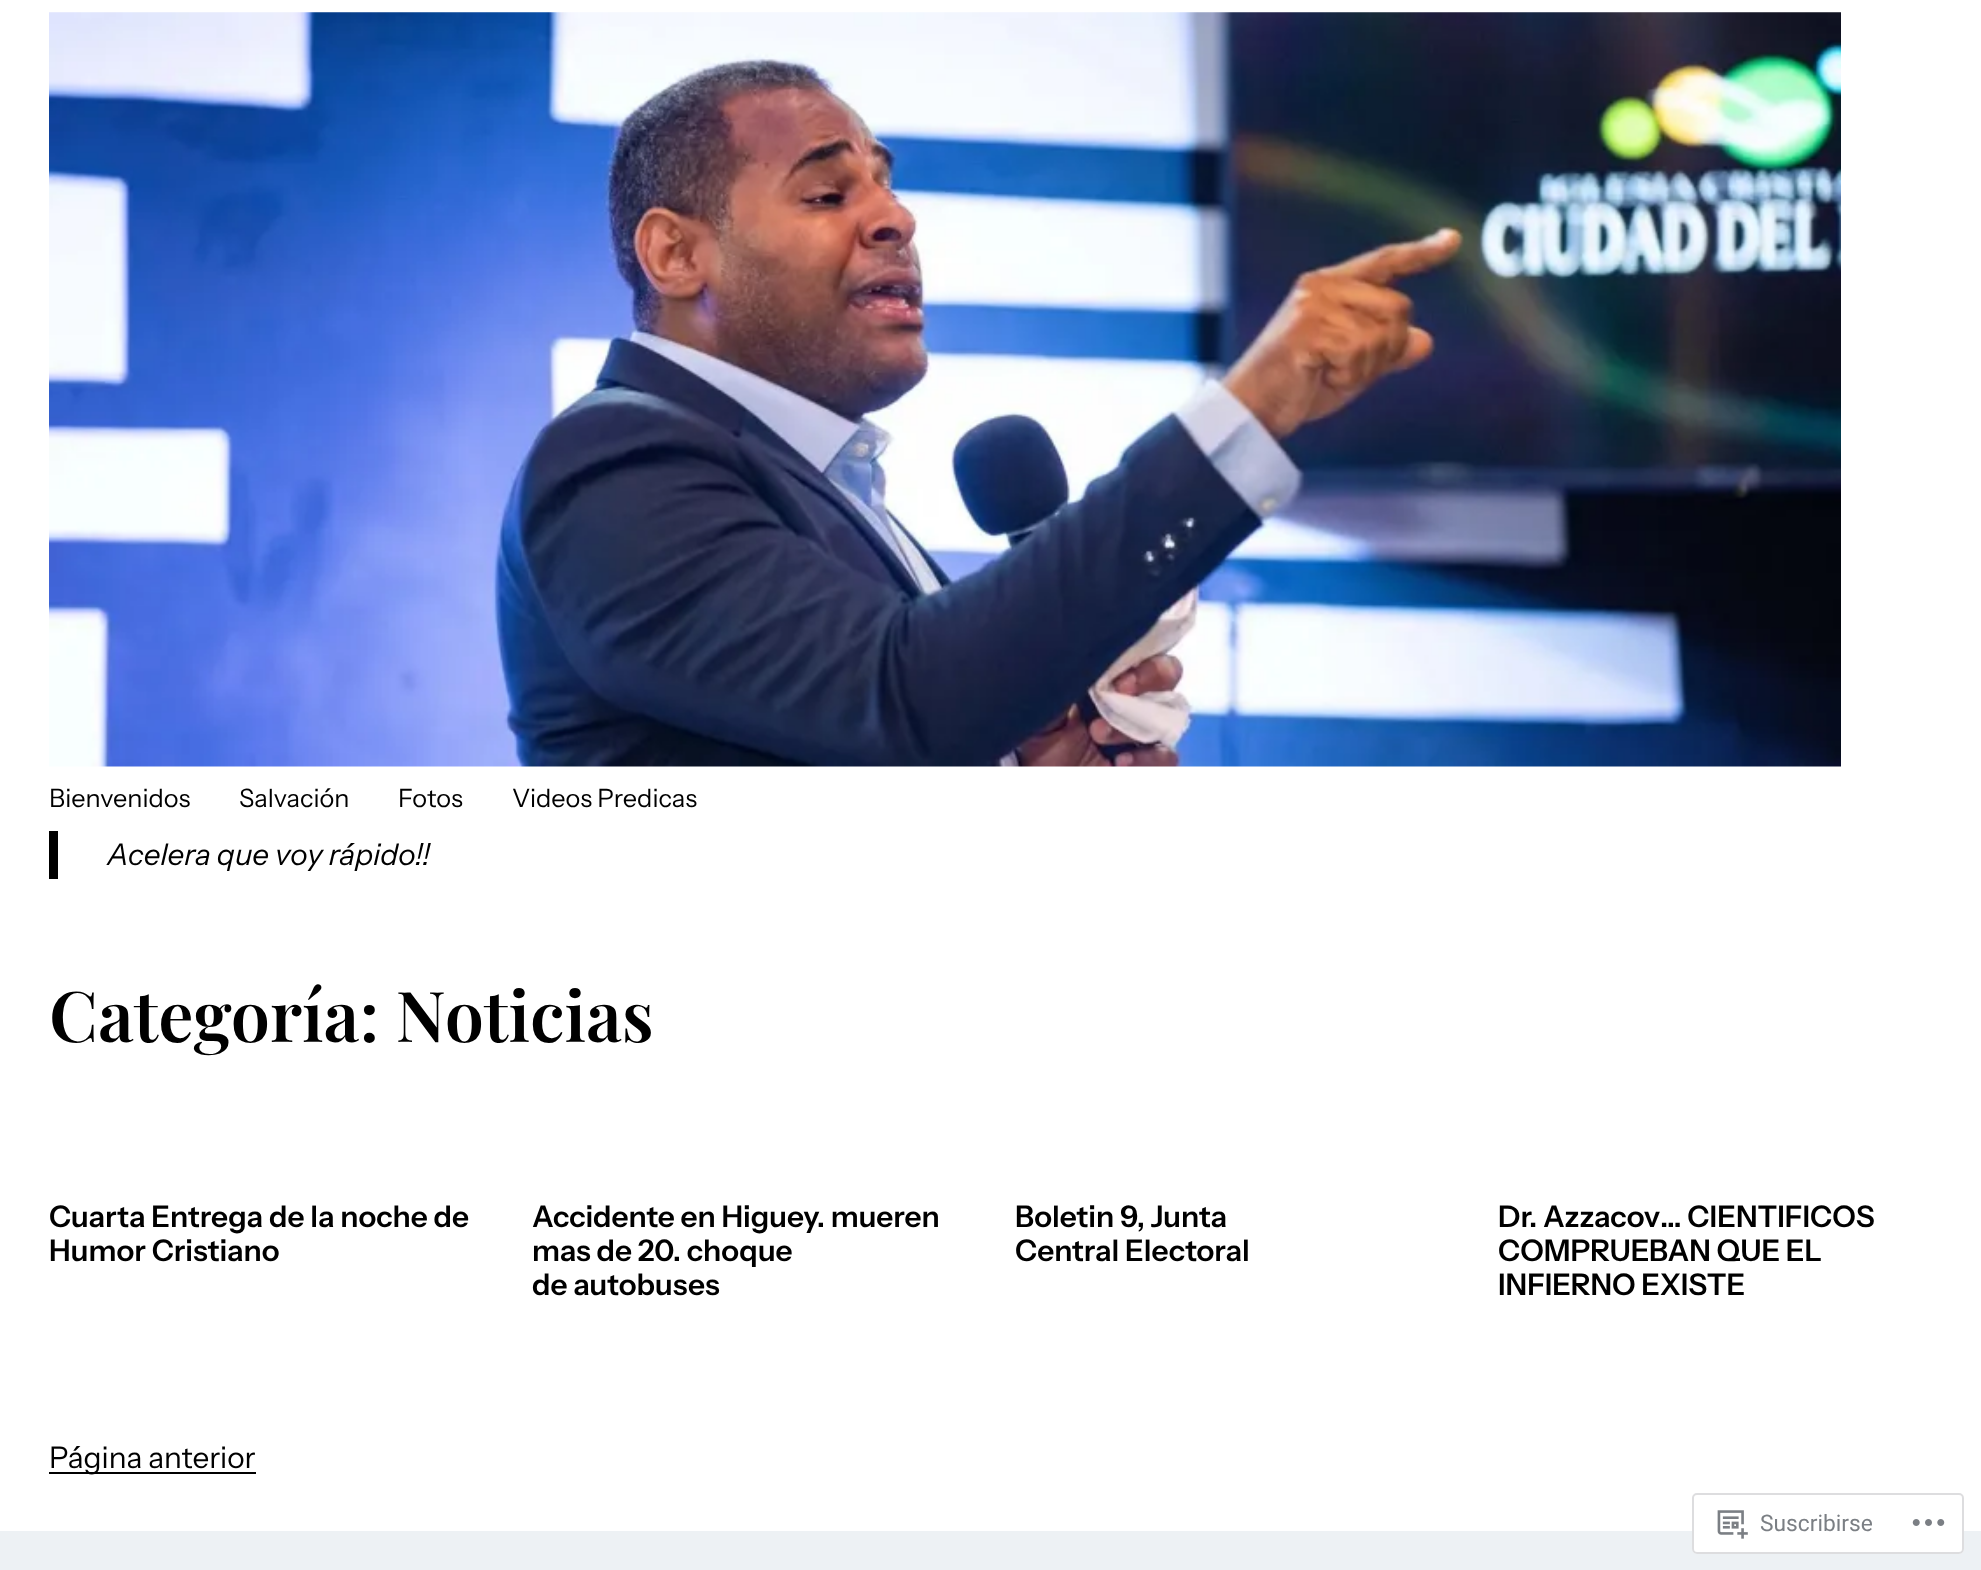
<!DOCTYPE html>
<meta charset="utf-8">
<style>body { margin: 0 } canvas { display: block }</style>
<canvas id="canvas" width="1981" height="1570"></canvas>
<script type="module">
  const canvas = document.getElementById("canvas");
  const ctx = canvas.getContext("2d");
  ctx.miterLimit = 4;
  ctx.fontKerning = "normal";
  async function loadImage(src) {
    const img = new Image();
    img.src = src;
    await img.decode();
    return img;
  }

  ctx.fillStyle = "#ffffff";
  ctx.fillRect(0, 0, 1981, 1570);
  ctx.drawImage(await loadImage("img1.png"), 49, 12, 1792, 755);
  ctx.font = "25.25px Instrument Sans";
  ctx.fillStyle = "#000000";
  ctx.fillText("Bienvenidos", 49, 807);
  ctx.fillText("Salvación", 239, 807);
  ctx.fillText("Fotos", 398, 807);
  ctx.fillText("Videos Predicas", 512, 807);
  ctx.fillRect(49, 831, 9, 48);
  ctx.font = "italic 29.75px Instrument Sans";
  ctx.fillText("Acelera que voy rápido!!", 107, 865);
  ctx.font = "600 70px Playfair Display";
  ctx.fillText("Categoría: Noticias", 49, 1042);
  ctx.font = "600 29.75px Instrument Sans";
  ctx.fillText("Cuarta Entrega de la noche de", 49, 1227);
  ctx.fillText("Humor Cristiano", 49, 1261);
  ctx.fillText("Accidente en Higuey. mueren", 532, 1227);
  ctx.fillText("mas de 20. choque", 532, 1261);
  ctx.fillText("de autobuses", 532, 1295);
  ctx.fillText("Boletin 9, Junta", 1015, 1227);
  ctx.fillText("Central Electoral", 1015, 1261);
  ctx.fillText("Dr. Azzacov… CIENTIFICOS", 1498, 1227);
  ctx.fillText("COMPRUEBAN QUE EL", 1498, 1261);
  ctx.fillText("INFIERNO EXISTE", 1498, 1295);
  ctx.fillRect(49, 1472, 207, 2);
  ctx.font = "29.75px Instrument Sans";
  ctx.fillText("Página anterior", 49, 1468);
  ctx.fillStyle = "#edf1f4";
  ctx.fillRect(0, 1531, 1981, 39);
  ctx.fillStyle = "rgba(255, 255, 255, 0.98)";
  ctx.beginPath();
  ctx.roundRect(1692, 1493, 272, 61, 5);
  ctx.fill();
  ctx.beginPath();
  ctx.roundRect(1693, 1494, 270, 59, 4);
  ctx.strokeStyle = "rgba(220, 220, 222, 0.98)";
  ctx.lineWidth = 2;
  ctx.stroke();
  ctx.drawImage(await loadImage("img2.png"), 1717, 1510, 31, 29);
  ctx.font = "22.75px Roboto";
  ctx.fillStyle = "#7b7f84";
  ctx.fillText("Suscribirse", 1760, 1531);
  ctx.drawImage(await loadImage("img3.png"), 1912, 1519, 33, 7);
</script>
